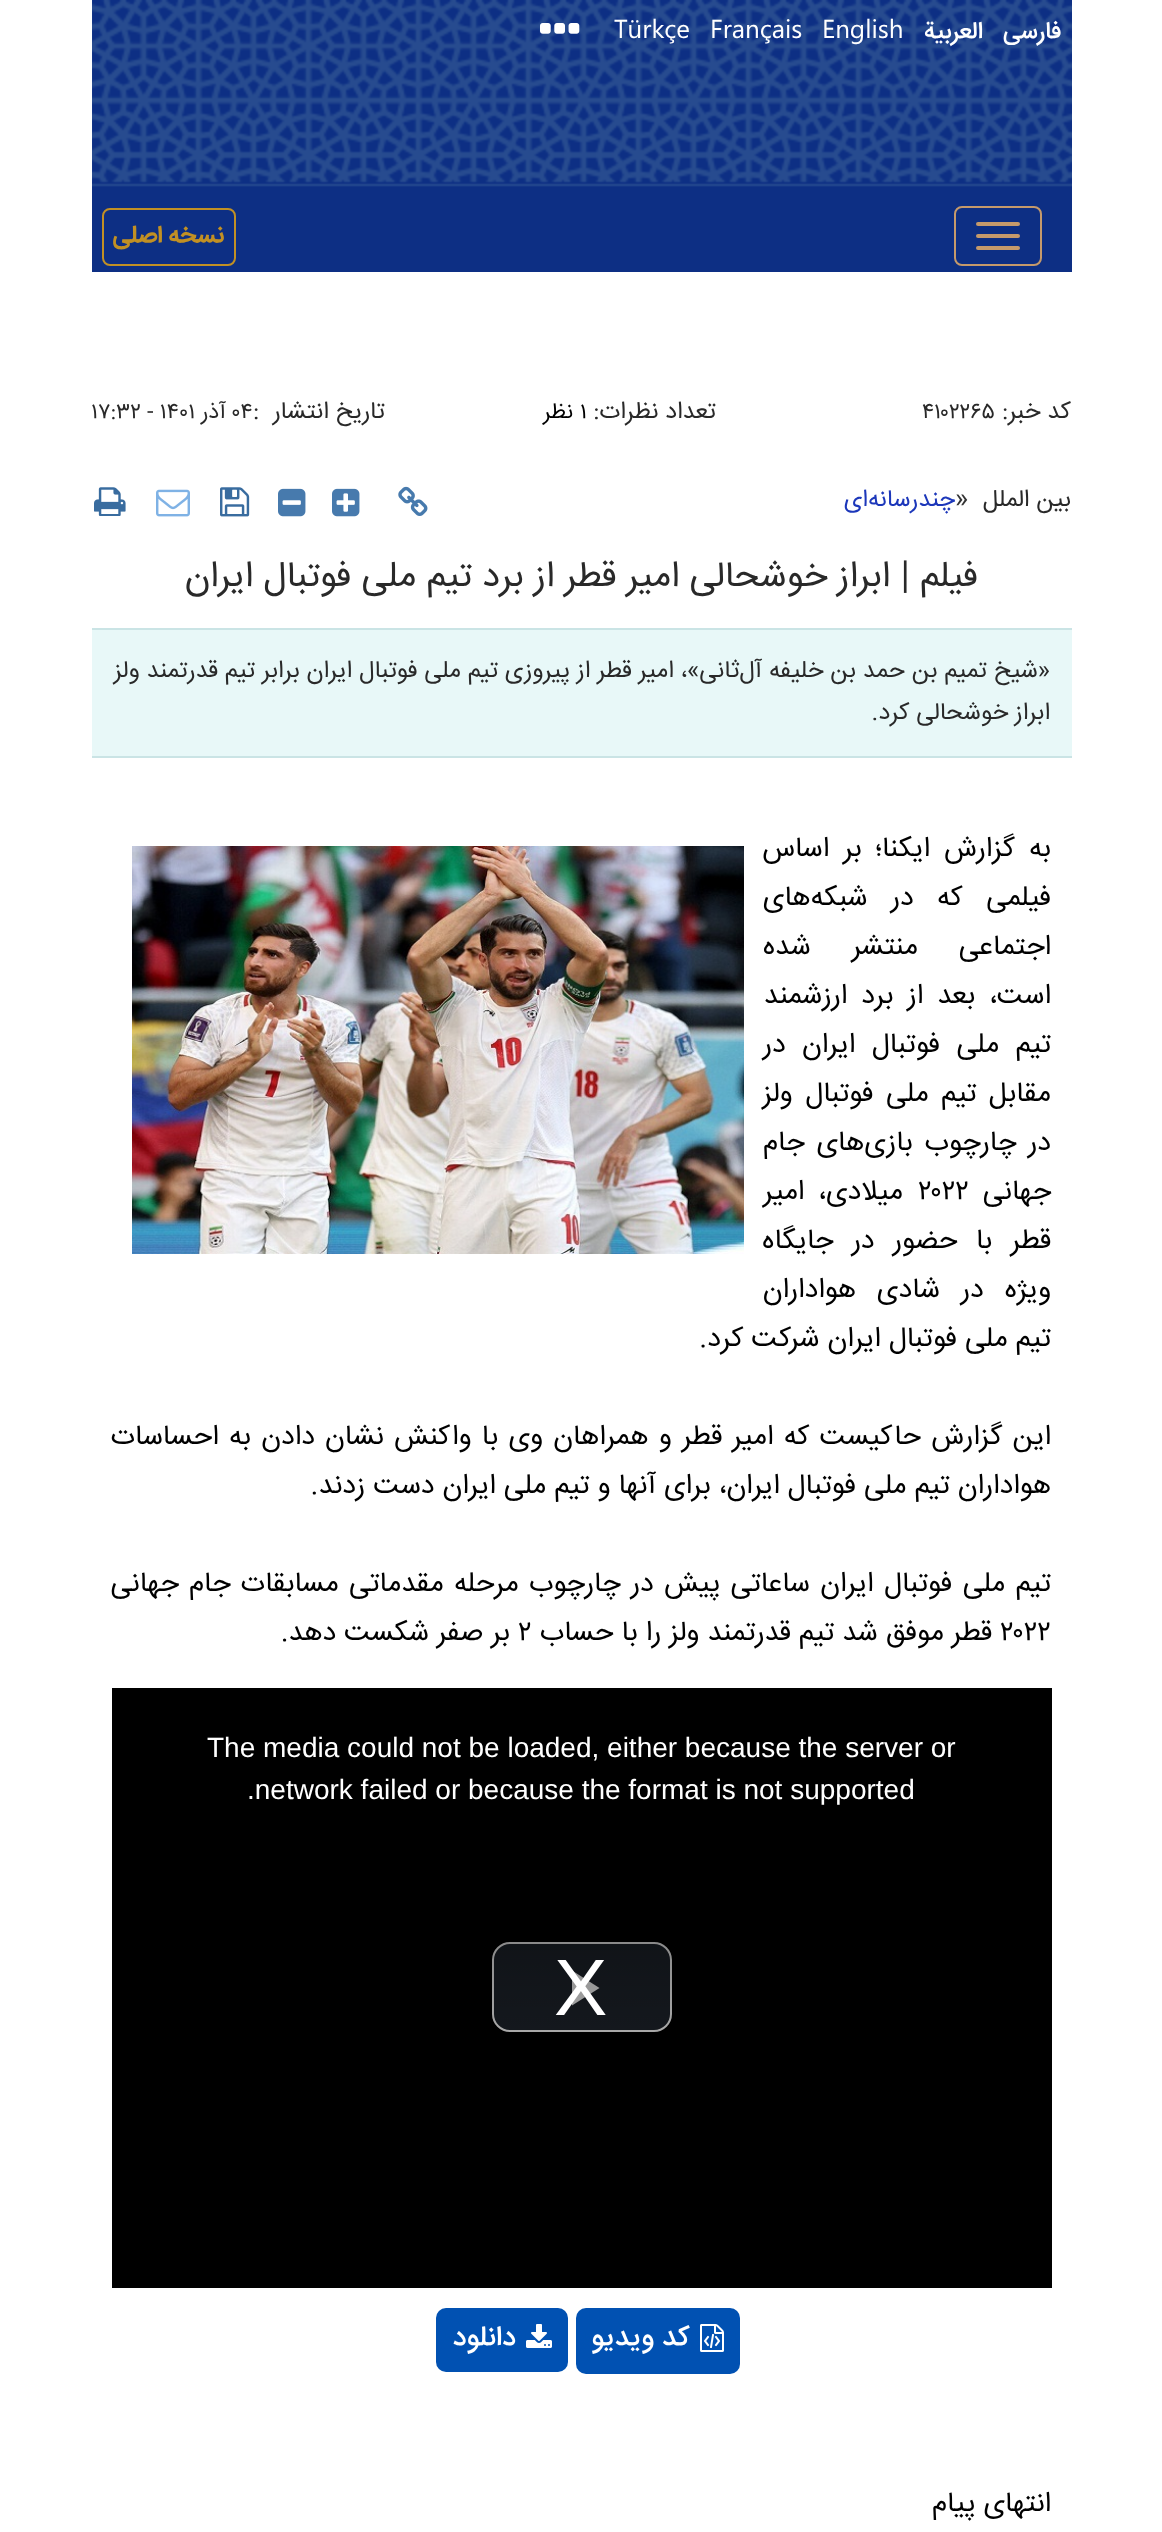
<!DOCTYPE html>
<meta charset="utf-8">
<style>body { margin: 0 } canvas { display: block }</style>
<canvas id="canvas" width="1162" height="2532"></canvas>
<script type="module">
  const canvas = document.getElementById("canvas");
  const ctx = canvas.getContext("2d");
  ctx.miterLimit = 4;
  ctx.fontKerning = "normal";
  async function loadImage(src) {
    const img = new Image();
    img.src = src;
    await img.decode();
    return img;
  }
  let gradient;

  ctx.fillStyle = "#ffffff";
  ctx.fillRect(0, 0, 1162, 2532);
  ctx.drawImage(await loadImage("img1.png"), 92, 0, 980, 198);
  ctx.direction = "rtl";
  ctx.font = "500 24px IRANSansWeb";
  ctx.fillText("فارسی", 1061, 38);
  ctx.fillText("العربیة", 983, 38);
  ctx.direction = "ltr";
  ctx.font = "26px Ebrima";
  ctx.fillText("English", 822, 38);
  ctx.fillText("Français", 710, 38);
  ctx.fillText("Türkçe", 614, 38);
  ctx.drawImage(await loadImage("img2.png"), 540, 23, 40, 11);
  ctx.fillStyle = "#0d2f84";
  ctx.fillRect(92, 198, 980, 74);
  ctx.beginPath();
  ctx.roundRect(955, 207, 86, 58, 7);
  ctx.strokeStyle = "#c59a6b";
  ctx.lineWidth = 2;
  ctx.stroke();
  ctx.fillStyle = "#c59a6b";
  ctx.beginPath();
  ctx.roundRect(976, 222, 44, 4, 2);
  ctx.fill();
  ctx.beginPath();
  ctx.roundRect(976, 234, 44, 4, 2);
  ctx.fill();
  ctx.beginPath();
  ctx.roundRect(976, 246, 44, 4, 2);
  ctx.fill();
  ctx.beginPath();
  ctx.roundRect(103, 209, 132, 56, 7);
  ctx.strokeStyle = "#c19024";
  ctx.stroke();
  ctx.direction = "rtl";
  ctx.font = "bold 24px IRANSansWeb";
  ctx.fillStyle = "#c19024";
  ctx.fillText("نسخه اصلی", 224, 242);
  ctx.font = "24px IRANSansWeb";
  ctx.fillStyle = "#292929";
  ctx.fillText("کد خبر:", 1071, 418);
  ctx.direction = "ltr";
  ctx.font = "22px IRANSansWeb";
  ctx.fillText("۴۱۰۲۲۶۵", 922, 418);
  ctx.direction = "rtl";
  ctx.font = "24px IRANSansWeb";
  ctx.fillText("تعداد نظرات:", 716, 418);
  ctx.direction = "ltr";
  ctx.font = "22px IRANSansWeb";
  ctx.fillStyle = "#000000";
  ctx.fillText("۱", 580, 418);
  ctx.direction = "rtl";
  ctx.fillText("نظر", 573, 418);
  ctx.font = "24px IRANSansWeb";
  ctx.fillStyle = "#292929";
  ctx.fillText("تاریخ انتشار", 385, 418);
  ctx.direction = "ltr";
  ctx.fillText(":", 253, 418);
  ctx.font = "22px IRANSansWeb";
  ctx.fillText("۰۴", 232, 418);
  ctx.direction = "rtl";
  ctx.fillText("آذر", 226, 418);
  ctx.direction = "ltr";
  ctx.fillText("۱۷:۳۲ - ۱۴۰۱", 91, 418);
  ctx.direction = "rtl";
  ctx.font = "24px IRANSansWeb";
  ctx.fillText("بین الملل", 1071, 506);
  ctx.direction = "ltr";
  ctx.font = "26px IRANSansWeb";
  ctx.fillStyle = "#333333";
  ctx.fillText("»", 955, 506);
  ctx.direction = "rtl";
  ctx.font = "24px IRANSansWeb";
  ctx.fillStyle = "#1c37ba";
  ctx.fillText("چندرسانه‌ای", 955, 506);
  ctx.drawImage(await loadImage("img3.png"), 398, 486, 30, 30);
  ctx.drawImage(await loadImage("img4.png"), 332, 488, 28, 29);
  ctx.drawImage(await loadImage("img5.png"), 278, 488, 28, 29);
  ctx.drawImage(await loadImage("img6.png"), 220, 487, 30, 30);
  ctx.drawImage(await loadImage("img7.png"), 156, 489, 34, 28);
  ctx.drawImage(await loadImage("img8.png"), 94, 487, 32, 29);
  ctx.font = "36px IRANSansWeb";
  ctx.fillStyle = "#292929";
  ctx.fillText("فیلم | ابراز خوشحالی امیر قطر از برد تیم ملی فوتبال ایران", 978, 586);
  ctx.fillStyle = "#e8f8f8";
  ctx.fillRect(92, 630, 980, 126);
  ctx.fillStyle = "#cae4e5";
  ctx.fillRect(92, 628, 980, 2);
  ctx.fillRect(92, 756, 980, 2);
  ctx.font = "24px IRANSansWeb";
  ctx.fillStyle = "#292929";
  ctx.fillText("«شیخ تمیم بن حمد بن خلیفه آل‌ثانی»، امیر قطر از پیروزی تیم ملی فوتبال ایران برابر تیم قدرتمند ولز", 1050, 677);
  ctx.fillText("ابراز خوشحالی کرد.", 1050, 719);
  ctx.wordSpacing = "6px";
  ctx.font = "28px IRANSansWeb";
  ctx.fillStyle = "#000000";
  ctx.fillText("به گزارش ایکنا؛ بر اساس", 1051, 856);
  ctx.wordSpacing = "15.5px";
  ctx.fillText("فیلمی که در شبکه‌های", 1051, 905);
  ctx.wordSpacing = "33px";
  ctx.fillText("اجتماعی منتشر شده", 1051, 954);
  ctx.wordSpacing = "6px";
  ctx.fillText("است، بعد از برد ارزشمند", 1051, 1003);
  ctx.wordSpacing = "8.5px";
  ctx.fillText("تیم ملی فوتبال ایران در", 1051, 1052);
  ctx.wordSpacing = "4.5px";
  ctx.fillText("مقابل تیم ملی فوتبال ولز", 1051, 1101);
  ctx.wordSpacing = "4px";
  ctx.fillText("در چارچوب بازی‌های جام", 1051, 1150);
  ctx.wordSpacing = "0px";
  ctx.fillText("جهانی", 1051, 1199);
  ctx.direction = "ltr";
  ctx.fillText("۲۰۲۲", 918, 1199);
  ctx.wordSpacing = "6px";
  ctx.direction = "rtl";
  ctx.fillText("میلادی، امیر", 903, 1199);
  ctx.wordSpacing = "10.5px";
  ctx.fillText("قطر با حضور در جایگاه", 1051, 1248);
  ctx.wordSpacing = "13px";
  ctx.fillText("ویژه در شادی هواداران", 1051, 1297);
  ctx.wordSpacing = "0px";
  ctx.fillText("تیم ملی فوتبال ایران شرکت کرد.", 1051, 1346);
  ctx.wordSpacing = "2.25px";
  ctx.fillText("این گزارش حاکیست که امیر قطر و همراهان وی با واکنش نشان دادن به احساسات", 1051, 1444);
  ctx.wordSpacing = "0px";
  ctx.fillText("هواداران تیم ملی فوتبال ایران، برای آنها و تیم ملی ایران دست زدند.", 1051, 1493);
  ctx.wordSpacing = "2.4px";
  ctx.fillText("تیم ملی فوتبال ایران ساعاتی پیش در چارچوب مرحله مقدماتی مسابقات جام جهانی", 1051, 1591);
  ctx.wordSpacing = "0px";
  ctx.direction = "ltr";
  ctx.fillText("۲۰۲۲", 1000, 1640);
  ctx.direction = "rtl";
  ctx.fillText("قطر موفق شد تیم قدرتمند ولز را با حساب", 992, 1640);
  ctx.direction = "ltr";
  ctx.fillText("۲", 518, 1640);
  ctx.direction = "rtl";
  ctx.fillText("بر صفر شکست دهد.", 510, 1640);
  ctx.drawImage(await loadImage("img9.png"), 132, 846, 612, 408);
  ctx.fillRect(112, 1688, 940, 600);
  ctx.fillStyle = "#1e242c";
  ctx.beginPath();
  ctx.roundRect(493, 1943, 178, 88, 17);
  ctx.fill();
  ctx.strokeStyle = "#ffffff";
  ctx.stroke();
  ctx.fillStyle = "#ffffff";
  ctx.beginPath();
  ctx.moveTo(572, 1970.5);
  ctx.lineTo(572, 2005.5);
  ctx.lineTo(599.5, 1988);
  ctx.closePath();
  ctx.fill();
  gradient = ctx.createLinearGradient(582, 1688, 582, 2288);
  gradient.addColorStop(0, "rgba(0, 0, 0, 0.8)");
  gradient.addColorStop(1, "rgba(0, 0, 0, 0)");
  ctx.fillStyle = gradient;
  ctx.fillRect(492, 1942, 180, 90);
  ctx.direction = "ltr";
  ctx.font = "28px Liberation Sans";
  ctx.fillStyle = "#ffffff";
  ctx.fillText("The media could not be loaded, either because the server or", 207, 1757);
  ctx.fillText(".network failed or because the format is not supported", 247, 1799);
  ctx.font = "80px Liberation Sans";
  ctx.fillText("X", 554, 2015);
  ctx.fillStyle = "#0151b2";
  ctx.beginPath();
  ctx.roundRect(576, 2308, 164, 66, 10);
  ctx.fill();
  ctx.drawImage(await loadImage("img10.png"), 700, 2324, 24, 28);
  ctx.direction = "rtl";
  ctx.font = "500 28px IRANSansWeb";
  ctx.fillStyle = "#ffffff";
  ctx.fillText("کد ویدیو", 689, 2345);
  ctx.fillStyle = "#0151b2";
  ctx.beginPath();
  ctx.roundRect(436, 2308, 132, 64, 10);
  ctx.fill();
  ctx.drawImage(await loadImage("img11.png"), 526, 2324, 26, 24);
  ctx.fillStyle = "#ffffff";
  ctx.fillText("دانلود", 516, 2345);
  ctx.font = "28px IRANSansWeb";
  ctx.fillStyle = "#000000";
  ctx.fillText("انتهای پیام", 1051, 2511);
</script>
